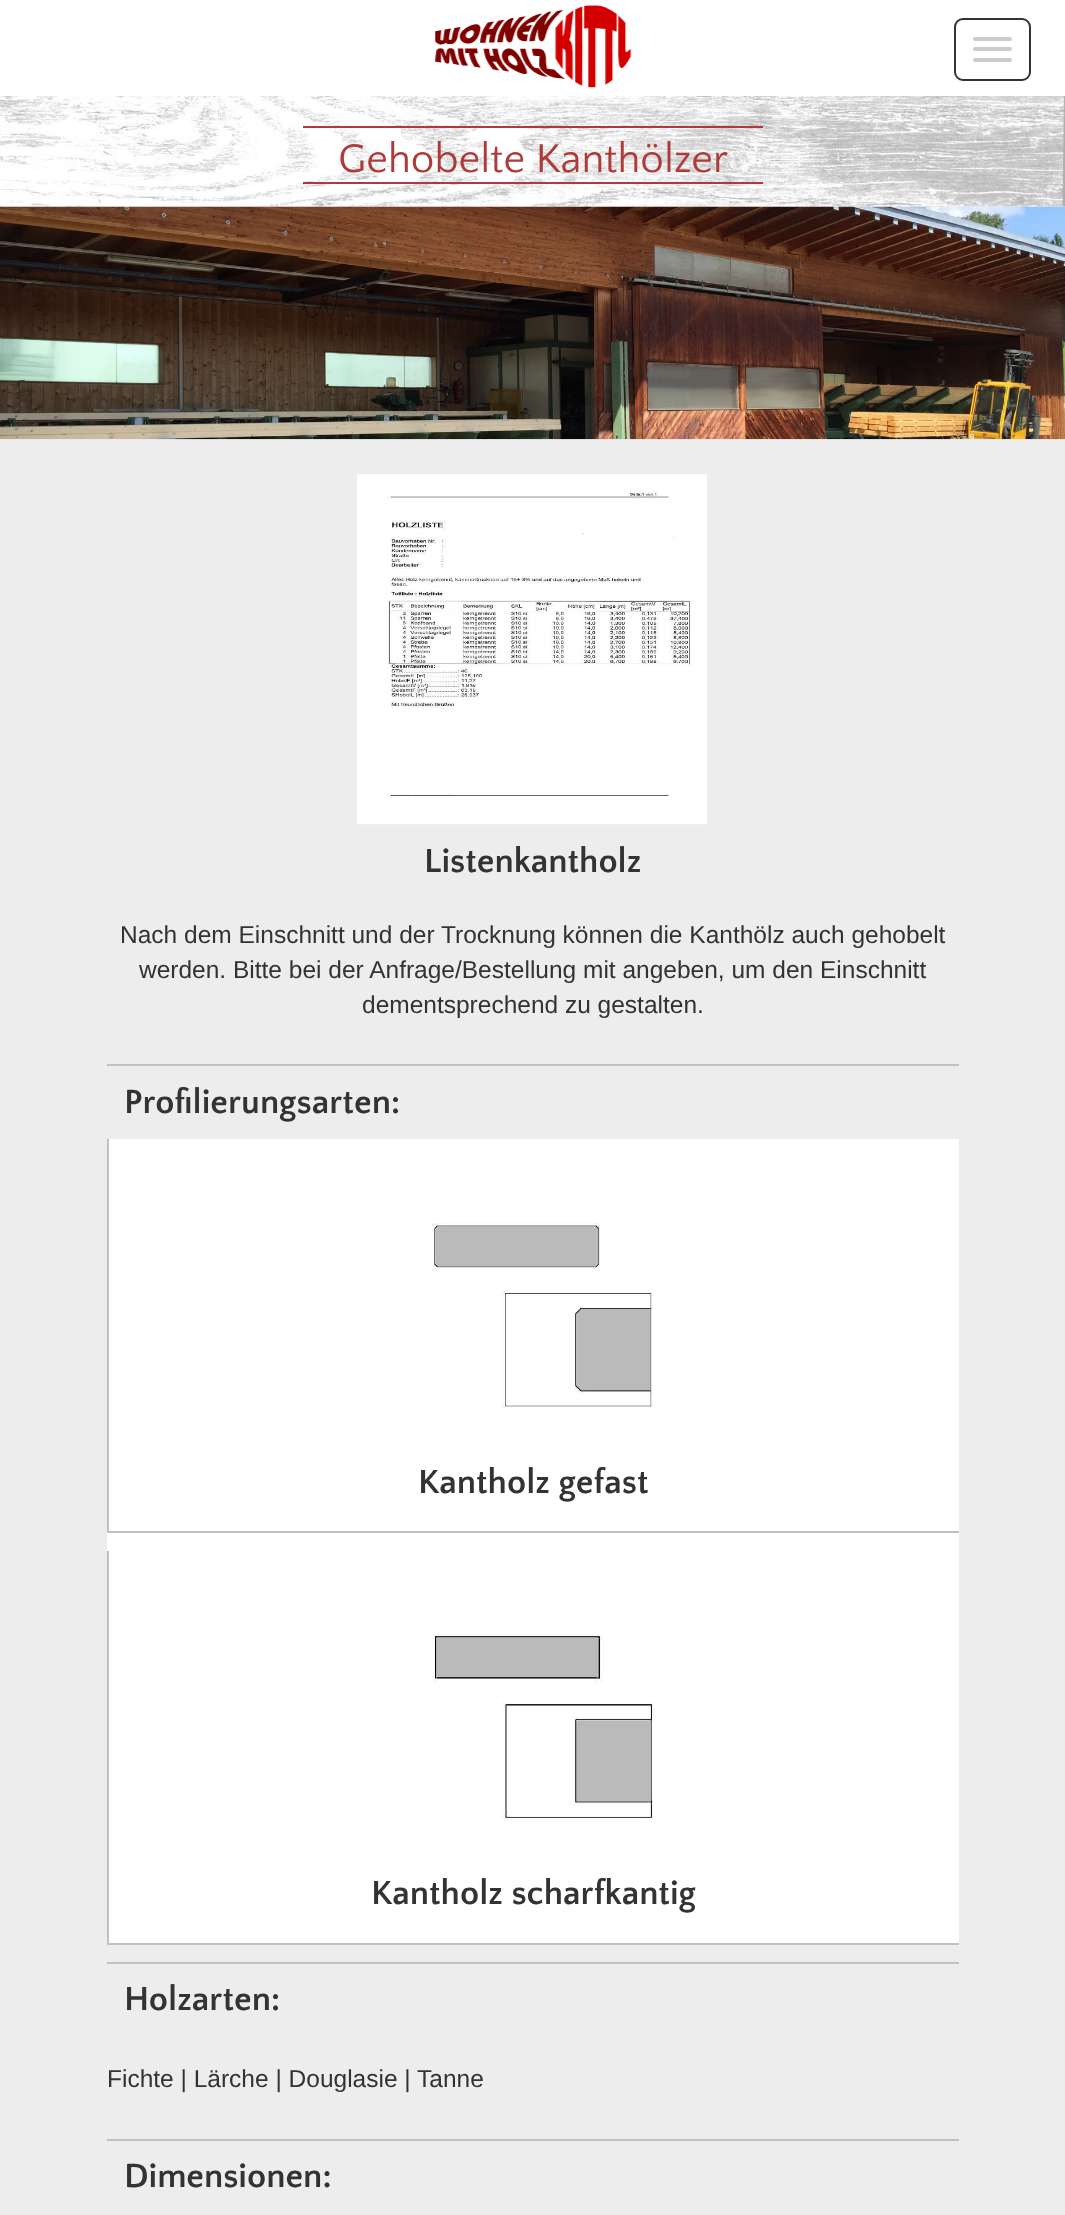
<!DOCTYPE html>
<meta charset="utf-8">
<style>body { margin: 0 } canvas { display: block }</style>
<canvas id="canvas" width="1065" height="2215"></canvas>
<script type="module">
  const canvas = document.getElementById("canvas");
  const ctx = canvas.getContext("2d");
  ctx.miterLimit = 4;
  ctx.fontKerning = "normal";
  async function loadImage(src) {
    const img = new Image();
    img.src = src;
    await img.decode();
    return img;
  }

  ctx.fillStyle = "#ffffff";
  ctx.fillRect(0, 0, 1065, 2215);
  ctx.fillStyle = "#ededed";
  ctx.fillRect(0, 206, 1065, 2009);
  ctx.drawImage(await loadImage("img2.png"), 0, 94, 1065, 113);
  ctx.fillStyle = "rgba(255, 255, 255, 0.95)";
  ctx.fillRect(0, 94, 1065, 2);
  ctx.drawImage(await loadImage("img1.png"), 435, 5, 197, 83);
  ctx.beginPath();
  ctx.roundRect(955, 19, 75, 61, 8);
  ctx.strokeStyle = "#333333";
  ctx.lineWidth = 2;
  ctx.stroke();
  ctx.fillStyle = "#cccccc";
  ctx.beginPath();
  ctx.roundRect(973, 37, 39, 4, 2);
  ctx.fill();
  ctx.beginPath();
  ctx.roundRect(973, 47, 39, 4, 2);
  ctx.fill();
  ctx.beginPath();
  ctx.roundRect(973, 58, 39, 4, 2);
  ctx.fill();
  ctx.font = "42px Quattrocento Sans";
  ctx.fillStyle = "#af3a3a";
  ctx.fillText("Gehobelte Kanthölzer", 338, 172);
  ctx.fillRect(303, 126, 460, 2);
  ctx.fillRect(303, 182, 460, 2);
  ctx.save();
  ctx.beginPath();
  ctx.moveTo(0, 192);
  ctx.lineTo(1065, 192);
  ctx.lineTo(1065, 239);
  ctx.lineTo(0, 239);
  ctx.closePath();
  ctx.moveTo(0, 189);
  ctx.lineTo(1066, 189);
  ctx.lineTo(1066, 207);
  ctx.lineTo(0, 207);
  ctx.closePath();
  ctx.clip("evenodd");
  ctx.fillStyle = "rgba(164, 164, 164, 0.2)";
  ctx.filter = "blur(4.5px)";
  ctx.beginPath();
  ctx.rect(0, 207, 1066, 17);
  ctx.fill();
  ctx.filter = "none";
  ctx.restore();
  ctx.drawImage(await loadImage("img3.png"), 0, 206, 1065, 234);
  ctx.drawImage(await loadImage("img4.png"), 357, 474, 350, 351);
  ctx.font = "bold 35px Quattrocento Sans";
  ctx.fillStyle = "#333333";
  ctx.fillText("Listenkantholz", 424, 872);
  ctx.font = "24.5px Liberation Sans";
  ctx.fillText("Nach dem Einschnitt und der Trocknung können die Kanthölz auch gehobelt", 120, 943);
  ctx.fillText("werden. Bitte bei der Anfrage/Bestellung mit angeben, um den Einschnitt", 139, 978);
  ctx.fillText("dementsprechend zu gestalten.", 362, 1013);
  ctx.fillStyle = "#c1c1c1";
  ctx.fillRect(107, 1064, 852, 2);
  ctx.font = "bold 35px Quattrocento Sans";
  ctx.fillStyle = "#333333";
  ctx.fillText("Profilierungsarten:", 124, 1113);
  ctx.fillStyle = "#ffffff";
  ctx.fillRect(107, 1139, 852, 804);
  ctx.fillStyle = "#c1c1c1";
  ctx.fillRect(107, 1531, 852, 2);
  ctx.fillRect(107, 1139, 2, 394);
  ctx.drawImage(await loadImage("img5.png"), 432, 1223, 221, 186);
  ctx.fillStyle = "#333333";
  ctx.fillText("Kantholz gefast", 418, 1493);
  ctx.fillStyle = "#c1c1c1";
  ctx.fillRect(107, 1943, 852, 2);
  ctx.fillRect(107, 1551, 2, 393);
  ctx.drawImage(await loadImage("img6.png"), 433, 1634, 220, 186);
  ctx.fillStyle = "#333333";
  ctx.fillText("Kantholz scharfkantig", 371, 1904);
  ctx.fillStyle = "#c1c1c1";
  ctx.fillRect(107, 1962, 852, 2);
  ctx.fillStyle = "#333333";
  ctx.fillText("Holzarten:", 124, 2010);
  ctx.font = "24.5px Liberation Sans";
  ctx.fillText("Fichte | Lärche | Douglasie |", 107, 2087);
  ctx.fillText("Tanne", 417, 2087);
  ctx.fillStyle = "#c1c1c1";
  ctx.fillRect(107, 2139, 852, 2);
  ctx.font = "bold 35px Quattrocento Sans";
  ctx.fillStyle = "#333333";
  ctx.fillText("Dimensionen:", 124, 2187);
</script>
